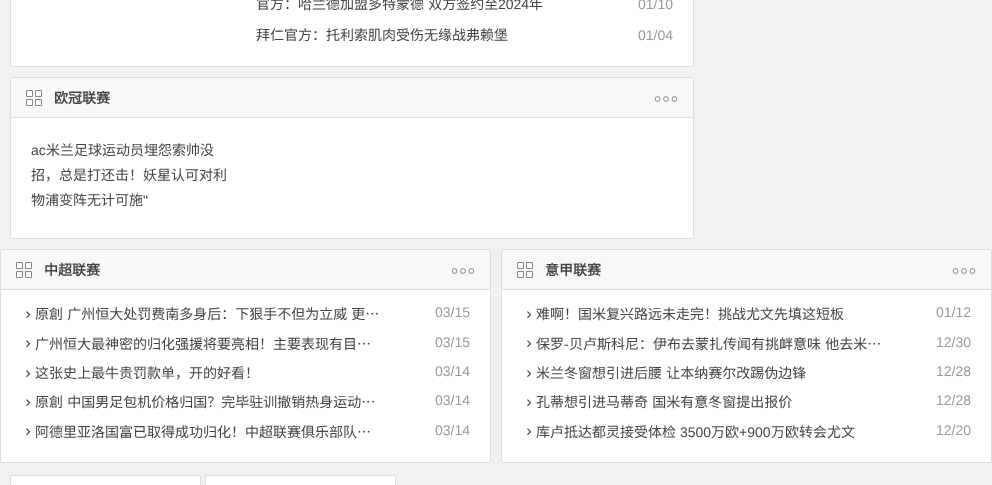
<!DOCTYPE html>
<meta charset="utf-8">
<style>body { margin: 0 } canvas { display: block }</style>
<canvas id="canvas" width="992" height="485"></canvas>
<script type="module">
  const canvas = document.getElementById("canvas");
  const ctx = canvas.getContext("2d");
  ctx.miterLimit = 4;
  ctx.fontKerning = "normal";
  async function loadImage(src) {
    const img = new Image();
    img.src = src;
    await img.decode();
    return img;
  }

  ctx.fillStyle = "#f1f1f1";
  ctx.fillRect(0, 0, 992, 485);
  ctx.fillStyle = "#ffffff";
  ctx.beginPath();
  ctx.roundRect(10.5, -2.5, 683, 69, 1.5);
  ctx.fill();
  ctx.strokeStyle = "#dddddd";
  ctx.stroke();
  ctx.wordSpacing = "1px";
  ctx.font = "14px Noto Sans CJK SC";
  ctx.fillStyle = "#444444";
  ctx.fillText("官方：哈兰德加盟多特蒙德 双方签约至", 256, 9);
  ctx.wordSpacing = "0px";
  ctx.font = "14px Liberation Sans";
  ctx.fillText("2024", 498, 9);
  ctx.font = "14px Noto Sans CJK SC";
  ctx.fillText("年", 529, 9);
  ctx.font = "14px Liberation Sans";
  ctx.fillStyle = "#999999";
  ctx.fillText("01/10", 638, 9);
  ctx.font = "14px Noto Sans CJK SC";
  ctx.fillStyle = "#444444";
  ctx.fillText("拜仁官方：托利索肌肉受伤无缘战弗赖堡", 256, 40);
  ctx.font = "14px Liberation Sans";
  ctx.fillStyle = "#999999";
  ctx.fillText("01/04", 638, 40);
  ctx.fillStyle = "#ffffff";
  ctx.beginPath();
  ctx.roundRect(10.5, 77.5, 683, 161, 1.5);
  ctx.fill();
  ctx.stroke();
  ctx.fillStyle = "#f8f8f8";
  ctx.fillRect(11, 78, 682, 39);
  ctx.fillStyle = "#dddddd";
  ctx.fillRect(11, 117, 682, 1);
  ctx.fillStyle = "#ffffff";
  ctx.beginPath();
  ctx.rect(26.5, 90.5, 6, 6);
  ctx.fill();
  ctx.strokeStyle = "#888888";
  ctx.stroke();
  ctx.beginPath();
  ctx.rect(35.5, 90.5, 6, 6);
  ctx.fill();
  ctx.stroke();
  ctx.beginPath();
  ctx.rect(26.5, 99.5, 6, 6);
  ctx.fill();
  ctx.stroke();
  ctx.beginPath();
  ctx.rect(35.5, 99.5, 6, 6);
  ctx.fill();
  ctx.stroke();
  ctx.font = "bold 14px Noto Sans CJK SC";
  ctx.fillStyle = "#444444";
  ctx.fillText("欧冠联赛", 54, 103);
  ctx.drawImage(await loadImage("img1.png"), 654, 96, 24, 6);
  ctx.font = "14px Liberation Sans";
  ctx.fillText("ac", 31, 155);
  ctx.font = "14px Noto Sans CJK SC";
  ctx.fillText("米兰足球运动员埋怨索帅没", 46, 155);
  ctx.fillText("招，总是打还击！妖星认可对利", 31, 180);
  ctx.fillText("物浦变阵无计可施", 31, 205);
  ctx.font = "14px Liberation Sans";
  ctx.fillText("\"", 143, 205);
  ctx.fillStyle = "#ffffff";
  ctx.beginPath();
  ctx.roundRect(0.5, 249.5, 490, 213, 1.5);
  ctx.fill();
  ctx.strokeStyle = "#dddddd";
  ctx.stroke();
  ctx.fillStyle = "#f8f8f8";
  ctx.fillRect(1, 250, 489, 39);
  ctx.fillStyle = "#dddddd";
  ctx.fillRect(1, 289, 489, 1);
  ctx.fillStyle = "#ffffff";
  ctx.beginPath();
  ctx.rect(16.5, 262.5, 6, 6);
  ctx.fill();
  ctx.strokeStyle = "#888888";
  ctx.stroke();
  ctx.beginPath();
  ctx.rect(25.5, 262.5, 6, 6);
  ctx.fill();
  ctx.stroke();
  ctx.beginPath();
  ctx.rect(16.5, 271.5, 6, 6);
  ctx.fill();
  ctx.stroke();
  ctx.beginPath();
  ctx.rect(25.5, 271.5, 6, 6);
  ctx.fill();
  ctx.stroke();
  ctx.font = "bold 14px Noto Sans CJK SC";
  ctx.fillStyle = "#444444";
  ctx.fillText("中超联赛", 44, 275);
  ctx.drawImage(await loadImage("img1.png"), 451, 268, 24, 6);
  ctx.drawImage(await loadImage("img2.png"), 26, 311, 5, 8);
  ctx.wordSpacing = "1px";
  ctx.font = "14px Noto Sans CJK SC";
  ctx.fillText("原創 广州恒大处罚费南多身后：下狠手不但为立威 更…", 35, 319);
  ctx.wordSpacing = "0px";
  ctx.font = "14px Liberation Sans";
  ctx.fillStyle = "#999999";
  ctx.fillText("03/15", 435, 317);
  ctx.drawImage(await loadImage("img2.png"), 26, 340, 5, 8);
  ctx.font = "14px Noto Sans CJK SC";
  ctx.fillStyle = "#444444";
  ctx.fillText("广州恒大最神密的归化强援将要亮相！主要表现有目…", 35, 349);
  ctx.font = "14px Liberation Sans";
  ctx.fillStyle = "#999999";
  ctx.fillText("03/15", 435, 347);
  ctx.drawImage(await loadImage("img2.png"), 26, 370, 5, 8);
  ctx.font = "14px Noto Sans CJK SC";
  ctx.fillStyle = "#444444";
  ctx.fillText("这张史上最牛贵罚款单，开的好看！", 35, 378);
  ctx.font = "14px Liberation Sans";
  ctx.fillStyle = "#999999";
  ctx.fillText("03/14", 435, 376);
  ctx.drawImage(await loadImage("img2.png"), 26, 399, 5, 8);
  ctx.wordSpacing = "1px";
  ctx.font = "14px Noto Sans CJK SC";
  ctx.fillStyle = "#444444";
  ctx.fillText("原創 中国男足包机价格归国？完毕驻训撤销热身运动…", 35, 407);
  ctx.wordSpacing = "0px";
  ctx.font = "14px Liberation Sans";
  ctx.fillStyle = "#999999";
  ctx.fillText("03/14", 435, 405);
  ctx.drawImage(await loadImage("img2.png"), 26, 428, 5, 8);
  ctx.font = "14px Noto Sans CJK SC";
  ctx.fillStyle = "#444444";
  ctx.fillText("阿德里亚洛国富已取得成功归化！中超联赛俱乐部队…", 35, 437);
  ctx.font = "14px Liberation Sans";
  ctx.fillStyle = "#999999";
  ctx.fillText("03/14", 435, 435);
  ctx.fillStyle = "#ffffff";
  ctx.beginPath();
  ctx.roundRect(501.5, 249.5, 490, 213, 1.5);
  ctx.fill();
  ctx.strokeStyle = "#dddddd";
  ctx.stroke();
  ctx.fillStyle = "#f8f8f8";
  ctx.fillRect(502, 250, 489, 39);
  ctx.fillStyle = "#dddddd";
  ctx.fillRect(502, 289, 489, 1);
  ctx.fillStyle = "#ffffff";
  ctx.beginPath();
  ctx.rect(517.5, 262.5, 6, 6);
  ctx.fill();
  ctx.strokeStyle = "#888888";
  ctx.stroke();
  ctx.beginPath();
  ctx.rect(526.5, 262.5, 6, 6);
  ctx.fill();
  ctx.stroke();
  ctx.beginPath();
  ctx.rect(517.5, 271.5, 6, 6);
  ctx.fill();
  ctx.stroke();
  ctx.beginPath();
  ctx.rect(526.5, 271.5, 6, 6);
  ctx.fill();
  ctx.stroke();
  ctx.font = "bold 14px Noto Sans CJK SC";
  ctx.fillStyle = "#444444";
  ctx.fillText("意甲联赛", 545, 275);
  ctx.drawImage(await loadImage("img1.png"), 952, 268, 24, 6);
  ctx.drawImage(await loadImage("img2.png"), 527, 311, 5, 8);
  ctx.font = "14px Noto Sans CJK SC";
  ctx.fillText("难啊！国米复兴路远未走完！挑战尤文先填这短板", 536, 319);
  ctx.font = "14px Liberation Sans";
  ctx.fillStyle = "#999999";
  ctx.fillText("01/12", 936, 317);
  ctx.drawImage(await loadImage("img2.png"), 527, 340, 5, 8);
  ctx.font = "14px Noto Sans CJK SC";
  ctx.fillStyle = "#444444";
  ctx.fillText("保罗", 536, 349);
  ctx.font = "14px Liberation Sans";
  ctx.fillText("-", 564, 349);
  ctx.wordSpacing = "1px";
  ctx.font = "14px Noto Sans CJK SC";
  ctx.fillText("贝卢斯科尼：伊布去蒙扎传闻有挑衅意味 他去米…", 569, 349);
  ctx.wordSpacing = "0px";
  ctx.font = "14px Liberation Sans";
  ctx.fillStyle = "#999999";
  ctx.fillText("12/30", 936, 347);
  ctx.drawImage(await loadImage("img2.png"), 527, 370, 5, 8);
  ctx.wordSpacing = "1px";
  ctx.font = "14px Noto Sans CJK SC";
  ctx.fillStyle = "#444444";
  ctx.fillText("米兰冬窗想引进后腰 让本纳赛尔改踢伪边锋", 536, 378);
  ctx.wordSpacing = "0px";
  ctx.font = "14px Liberation Sans";
  ctx.fillStyle = "#999999";
  ctx.fillText("12/28", 936, 376);
  ctx.drawImage(await loadImage("img2.png"), 527, 399, 5, 8);
  ctx.wordSpacing = "1px";
  ctx.font = "14px Noto Sans CJK SC";
  ctx.fillStyle = "#444444";
  ctx.fillText("孔蒂想引进马蒂奇 国米有意冬窗提出报价", 536, 407);
  ctx.wordSpacing = "0px";
  ctx.font = "14px Liberation Sans";
  ctx.fillStyle = "#999999";
  ctx.fillText("12/28", 936, 405);
  ctx.drawImage(await loadImage("img2.png"), 527, 428, 5, 8);
  ctx.font = "14px Noto Sans CJK SC";
  ctx.fillStyle = "#444444";
  ctx.fillText("库卢抵达都灵接受体检", 536, 437);
  ctx.font = "14px Liberation Sans";
  ctx.fillText("3500", 680, 437);
  ctx.font = "14px Noto Sans CJK SC";
  ctx.fillText("万欧", 711, 437);
  ctx.font = "14px Liberation Sans";
  ctx.fillText("+900", 739, 437);
  ctx.font = "14px Noto Sans CJK SC";
  ctx.fillText("万欧转会尤文", 771, 437);
  ctx.font = "14px Liberation Sans";
  ctx.fillStyle = "#999999";
  ctx.fillText("12/20", 936, 435);
  ctx.fillStyle = "#ffffff";
  ctx.beginPath();
  ctx.roundRect(10.5, 475.5, 190, 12, 1.5);
  ctx.fill();
  ctx.strokeStyle = "#dddddd";
  ctx.stroke();
  ctx.beginPath();
  ctx.roundRect(205.5, 475.5, 190, 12, 1.5);
  ctx.fill();
  ctx.stroke();
</script>
